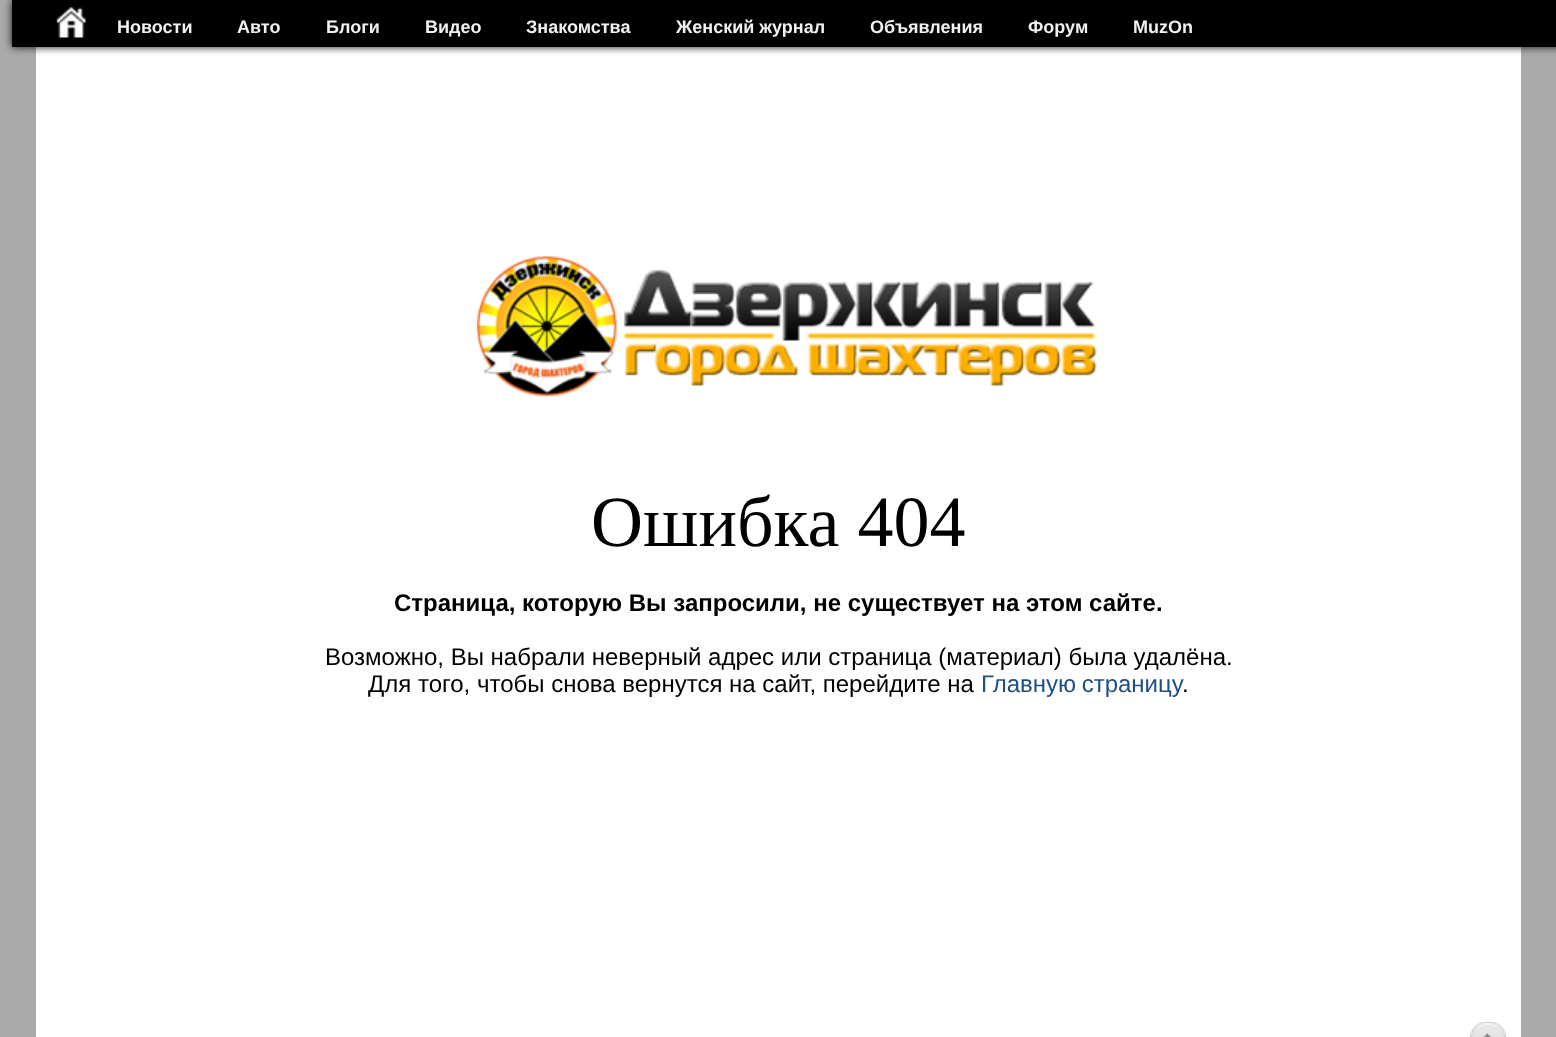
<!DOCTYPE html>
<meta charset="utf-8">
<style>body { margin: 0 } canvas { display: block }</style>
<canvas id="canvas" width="1556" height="1037"></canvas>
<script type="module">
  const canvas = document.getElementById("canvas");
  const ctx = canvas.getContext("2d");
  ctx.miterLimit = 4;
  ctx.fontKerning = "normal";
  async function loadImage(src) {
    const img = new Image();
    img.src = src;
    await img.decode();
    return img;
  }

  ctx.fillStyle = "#aaaaaa";
  ctx.fillRect(0, 0, 1556, 1037);
  ctx.fillStyle = "#ffffff";
  ctx.fillRect(36, 47, 1485, 990);
  ctx.fillStyle = "#111111";
  ctx.filter = "blur(4px)";
  ctx.beginPath();
  ctx.rect(12, 0, 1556, 47);
  ctx.fill();
  ctx.filter = "none";
  ctx.fillStyle = "#000000";
  ctx.fillRect(12, 0, 1544, 47);
  ctx.drawImage(await loadImage("img1.png"), 56, 7, 30, 31);
  ctx.font = "bold 18px Liberation Sans";
  ctx.fillStyle = "#f1f1f1";
  ctx.fillText("Новости", 117, 33);
  ctx.fillText("Авто", 237, 33);
  ctx.fillText("Блоги", 326, 33);
  ctx.fillText("Видео", 425, 33);
  ctx.fillText("Знакомства", 526, 33);
  ctx.fillText("Женский журнал", 676, 33);
  ctx.fillText("Объявления", 870, 33);
  ctx.fillText("Форум", 1028, 33);
  ctx.fillText("MuzOn", 1133, 33);
  ctx.drawImage(await loadImage("img2.png"), 476, 256, 621, 141);
  ctx.font = "72px Liberation Serif";
  ctx.fillStyle = "#000000";
  ctx.fillText("Ошибка 404", 591, 546);
  ctx.font = "bold 24px Liberation Sans";
  ctx.fillText("Страница, которую Вы запросили, не существует на этом сайте.", 394, 611);
  ctx.font = "24px Liberation Sans";
  ctx.fillText("Возможно, Вы набрали неверный адрес или страница (материал) была удалёна.", 325, 665);
  ctx.fillText("Для того, чтобы снова вернутся на сайт, перейдите на", 368, 692);
  ctx.wordSpacing = "-1px";
  ctx.fillStyle = "#1f4f82";
  ctx.fillText("Главную страницу", 981, 692);
  ctx.wordSpacing = "0px";
  ctx.fillStyle = "#000000";
  ctx.fillText(".", 1182, 692);
  ctx.drawImage(await loadImage("img3.png"), 1470, 1022, 36, 15);
</script>
